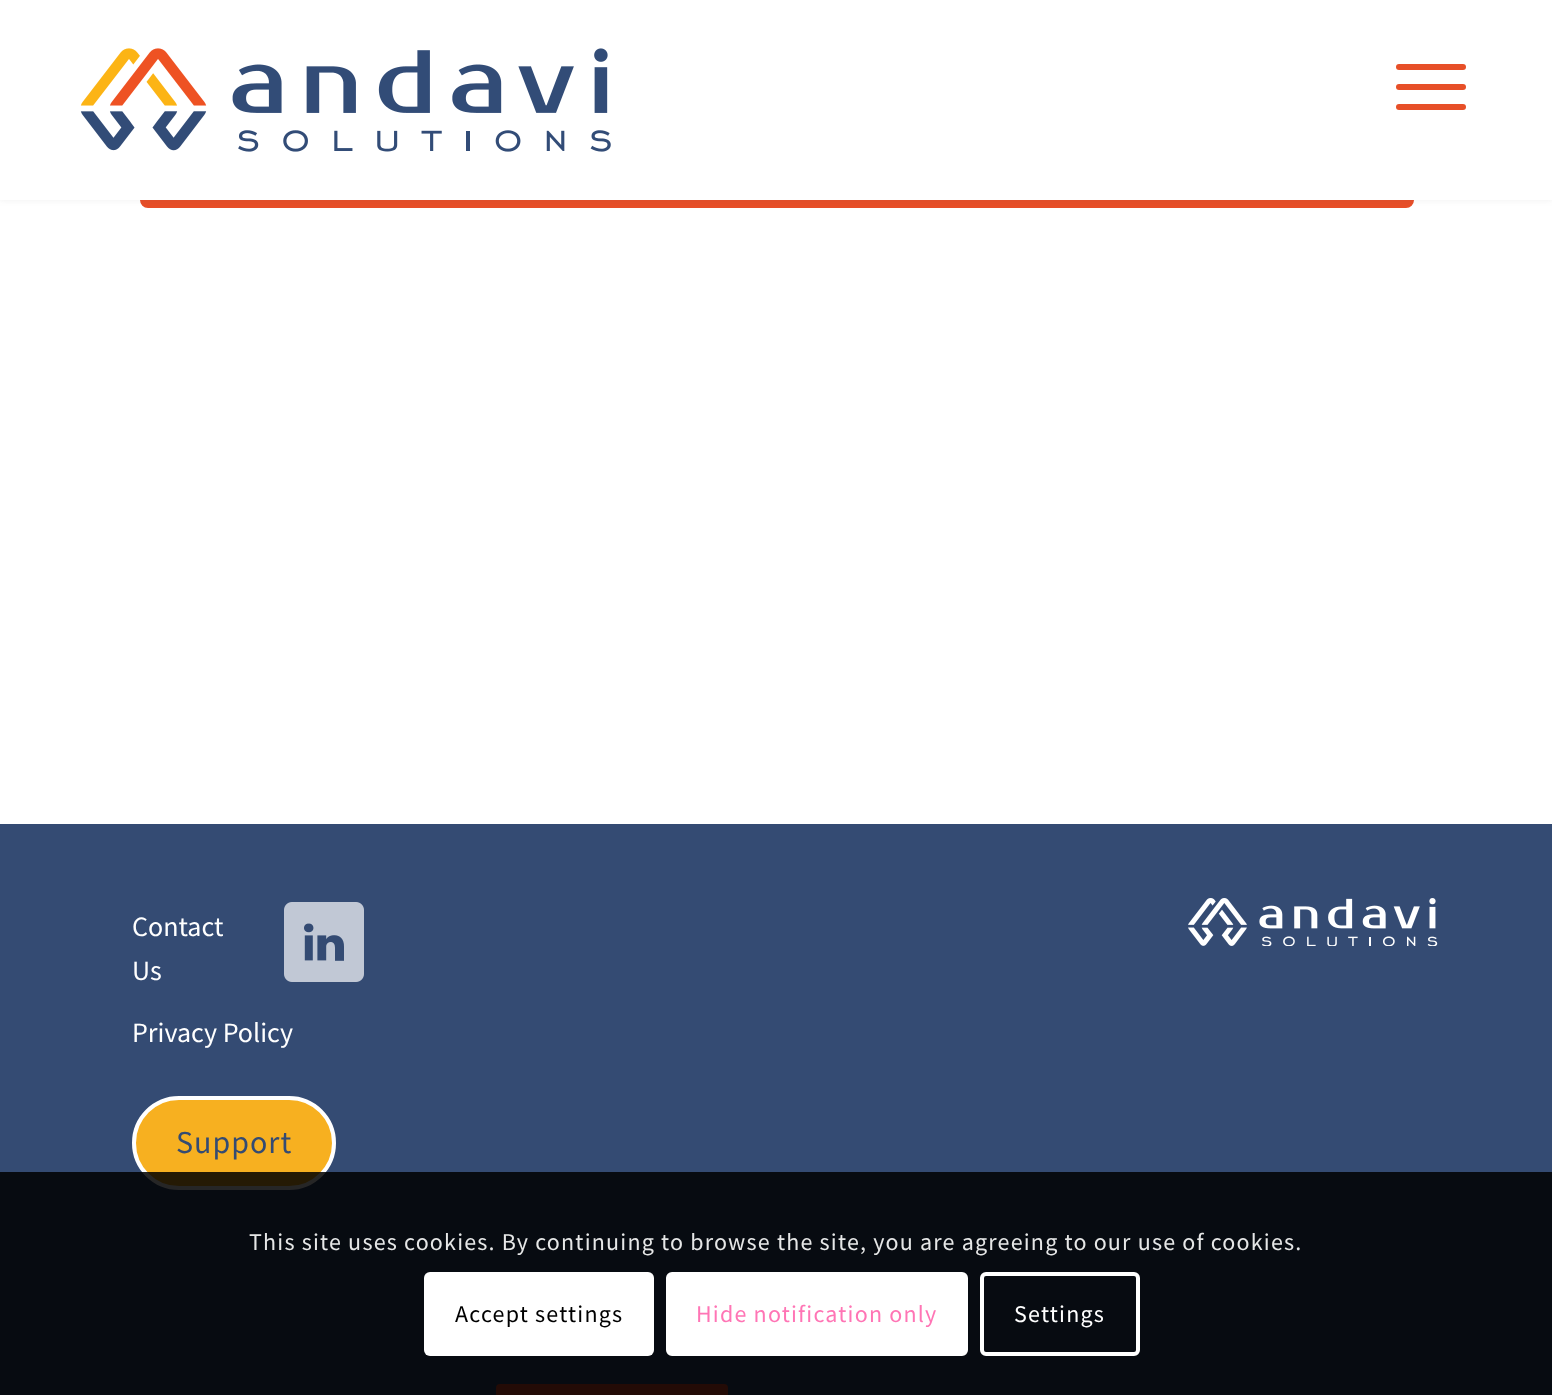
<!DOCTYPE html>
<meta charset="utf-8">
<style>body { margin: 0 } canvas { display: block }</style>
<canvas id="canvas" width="1552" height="1395"></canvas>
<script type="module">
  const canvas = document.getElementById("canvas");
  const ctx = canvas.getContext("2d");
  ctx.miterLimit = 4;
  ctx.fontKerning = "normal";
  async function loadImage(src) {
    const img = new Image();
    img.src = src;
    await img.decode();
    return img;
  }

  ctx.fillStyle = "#ffffff";
  ctx.fillRect(0, 0, 1552, 1395);
  ctx.fillStyle = "#e74e28";
  ctx.beginPath();
  ctx.roundRect(141, 115, 1272, 92, 7);
  ctx.fill();
  ctx.strokeStyle = "#e74e28";
  ctx.lineWidth = 2;
  ctx.stroke();
  ctx.fillStyle = "rgba(91, 87, 86, 0.1)";
  ctx.filter = "blur(3px)";
  ctx.beginPath();
  ctx.rect(0, 0, 1552, 200);
  ctx.fill();
  ctx.filter = "none";
  ctx.fillStyle = "#ffffff";
  ctx.fillRect(0, 0, 1552, 200);
  ctx.drawImage(await loadImage("img1.png"), 80, 48, 531, 104);
  ctx.fillStyle = "#e74f28";
  ctx.beginPath();
  ctx.roundRect(1396, 84, 70, 6, 3);
  ctx.fill();
  ctx.beginPath();
  ctx.roundRect(1396, 64, 70, 6, 3);
  ctx.fill();
  ctx.beginPath();
  ctx.roundRect(1396, 104, 70, 6, 3);
  ctx.fill();
  ctx.fillStyle = "#344b73";
  ctx.fillRect(0, 824, 1552, 571);
  ctx.font = "28px Source Sans Pro";
  ctx.fillStyle = "#ffffff";
  ctx.fillText("Contact", 132, 936);
  ctx.fillText("Us", 132, 980);
  ctx.drawImage(await loadImage("img2.png"), 284, 902, 80, 80);
  ctx.fillText("Privacy Policy", 132, 1042);
  ctx.fillStyle = "#f7b020";
  ctx.beginPath();
  ctx.roundRect(134, 1098, 200, 90, 45);
  ctx.fill();
  ctx.strokeStyle = "#ffffff";
  ctx.lineWidth = 4;
  ctx.stroke();
  ctx.letterSpacing = "1px";
  ctx.font = "32px Source Sans Pro";
  ctx.fillStyle = "#344b73";
  ctx.fillText("Support", 176, 1153);
  ctx.drawImage(await loadImage("img3.png"), 1188, 898, 250, 48);
  ctx.fillStyle = "#e74e28";
  ctx.beginPath();
  ctx.roundRect(498, 1386, 228, 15, 2);
  ctx.fill();
  ctx.strokeStyle = "#e74e28";
  ctx.stroke();
  ctx.fillStyle = "rgba(0, 0, 0, 0.85)";
  ctx.fillRect(0, 1172, 1552, 223);
  ctx.letterSpacing = "1.2px";
  ctx.font = "24px Source Sans Pro";
  ctx.fillStyle = "#e6e7e7";
  ctx.fillText("This site uses cookies. By continuing to browse the site, you are agreeing to our use of cookies.", 249, 1250);
  ctx.fillStyle = "#ffffff";
  ctx.beginPath();
  ctx.roundRect(424, 1272, 230, 84, 6);
  ctx.fill();
  ctx.fillStyle = "#000000";
  ctx.fillText("Accept settings", 455, 1322);
  ctx.fillStyle = "#ffffff";
  ctx.beginPath();
  ctx.roundRect(668, 1274, 298, 80, 4);
  ctx.fill();
  ctx.strokeStyle = "#ffffff";
  ctx.stroke();
  ctx.fillStyle = "#ff75b5";
  ctx.fillText("Hide notification only", 696, 1322);
  ctx.beginPath();
  ctx.roundRect(982, 1274, 156, 80, 4);
  ctx.stroke();
  ctx.fillStyle = "#ffffff";
  ctx.fillText("Settings", 1014, 1322);
</script>
